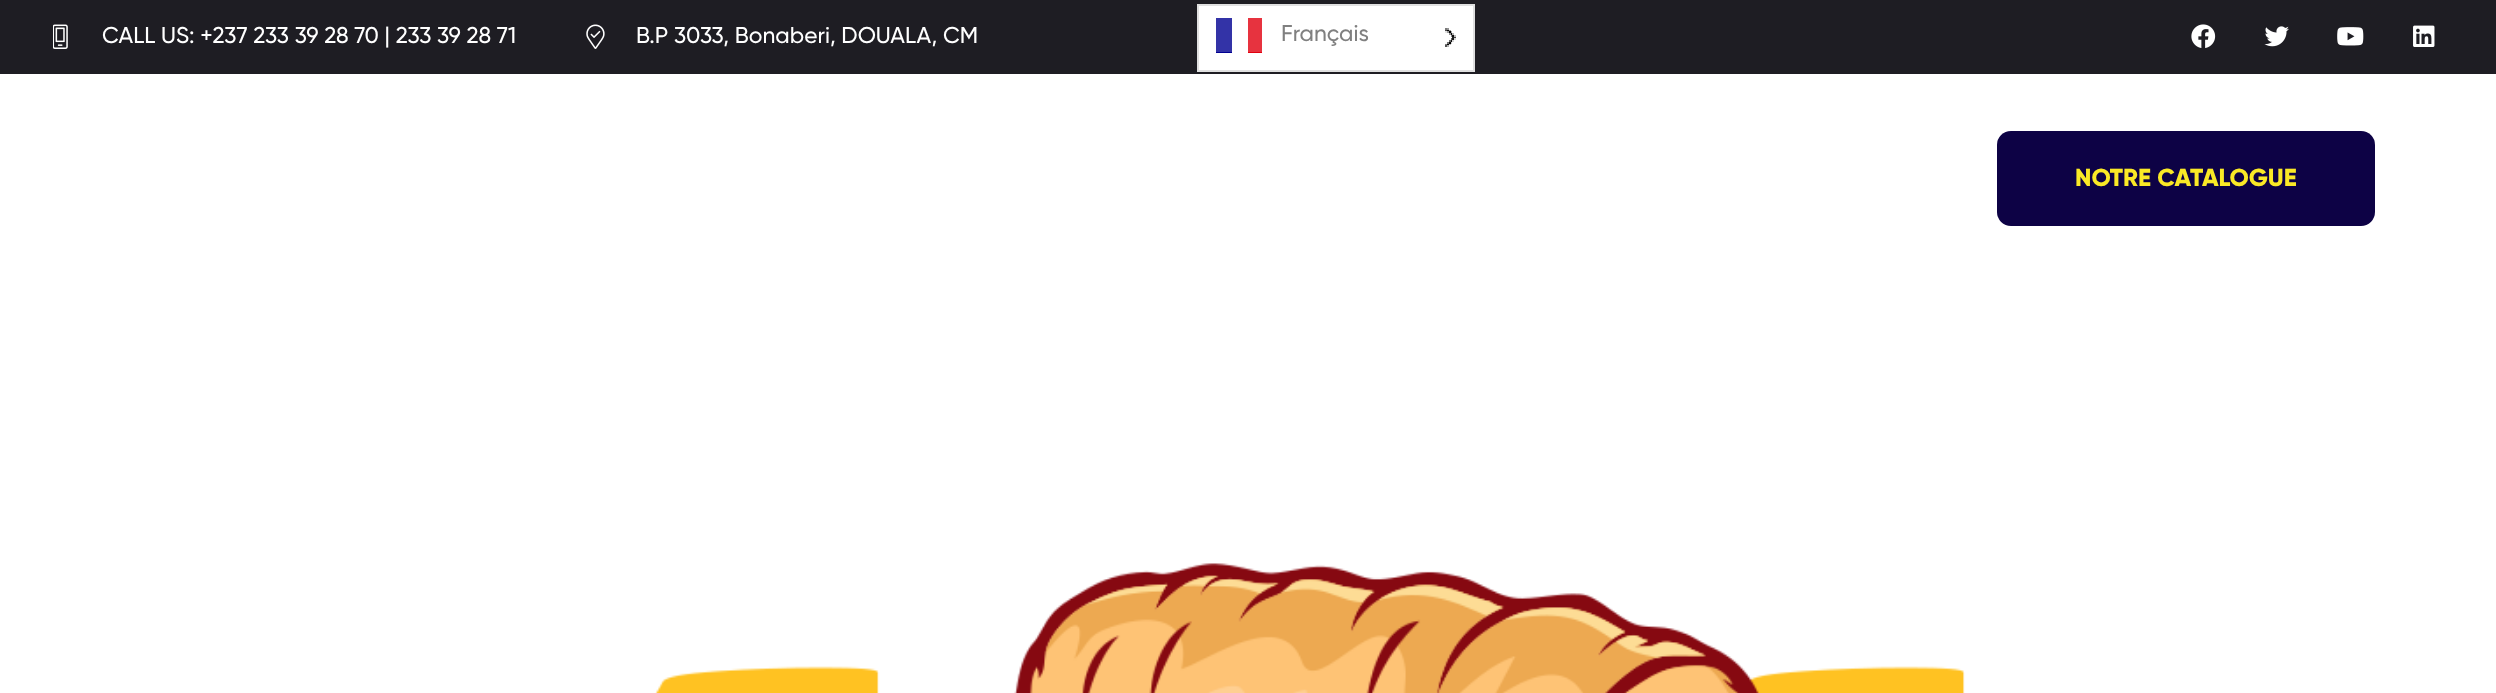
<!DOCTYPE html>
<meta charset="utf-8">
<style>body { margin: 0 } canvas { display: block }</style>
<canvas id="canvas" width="2496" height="693"></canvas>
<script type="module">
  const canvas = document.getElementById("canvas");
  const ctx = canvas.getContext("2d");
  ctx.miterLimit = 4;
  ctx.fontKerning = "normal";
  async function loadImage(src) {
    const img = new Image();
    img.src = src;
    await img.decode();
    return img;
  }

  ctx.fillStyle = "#ffffff";
  ctx.fillRect(0, 0, 2496, 693);
  ctx.fillStyle = "#1e1d23";
  ctx.fillRect(0, 0, 2496, 74);
  ctx.drawImage(await loadImage("img1.png"), 53, 24, 15, 25);
  ctx.font = "500 22.75px Gilroy";
  ctx.fillStyle = "#ffffff";
  ctx.fillText("CALL US: +237 233 39 28 70 | 233 39 28 71", 102, 43);
  ctx.drawImage(await loadImage("img2.png"), 586, 24, 19, 25);
  ctx.fillText("B.P 3033, Bonaberi, DOUALA, CM", 636, 43);
  ctx.beginPath();
  ctx.rect(1198, 5, 276, 66);
  ctx.fill();
  ctx.strokeStyle = "#e0e0e0";
  ctx.lineWidth = 2;
  ctx.stroke();
  ctx.fillStyle = "#000091";
  ctx.fillRect(1216, 52, 16, 1);
  ctx.fillStyle = "#3333a7";
  ctx.fillRect(1216, 18, 16, 34);
  ctx.fillStyle = "#e1000f";
  ctx.fillRect(1248, 52, 14, 1);
  ctx.fillStyle = "#e7333f";
  ctx.fillRect(1248, 18, 14, 34);
  ctx.fillStyle = "#808080";
  ctx.fillText("Français", 1281, 41);
  ctx.drawImage(await loadImage("img3.png"), 1445, 28, 11, 19);
  ctx.drawImage(await loadImage("img4.png"), 2191, 24, 25, 24);
  ctx.drawImage(await loadImage("img5.png"), 2264, 26, 25, 21);
  ctx.drawImage(await loadImage("img6.png"), 2337, 27, 27, 19);
  ctx.drawImage(await loadImage("img7.png"), 2413, 25, 22, 22);
  ctx.fillStyle = "#0d0245";
  ctx.beginPath();
  ctx.roundRect(1997, 131, 378, 95, 14);
  ctx.fill();
  ctx.font = "800 24.5px Gilroy";
  ctx.fillStyle = "#fae926";
  ctx.fillText("NOTRE CATALOGUE", 2075, 186);
  ctx.drawImage(await loadImage("img8.png"), 655, 563, 1310, 130);
</script>
